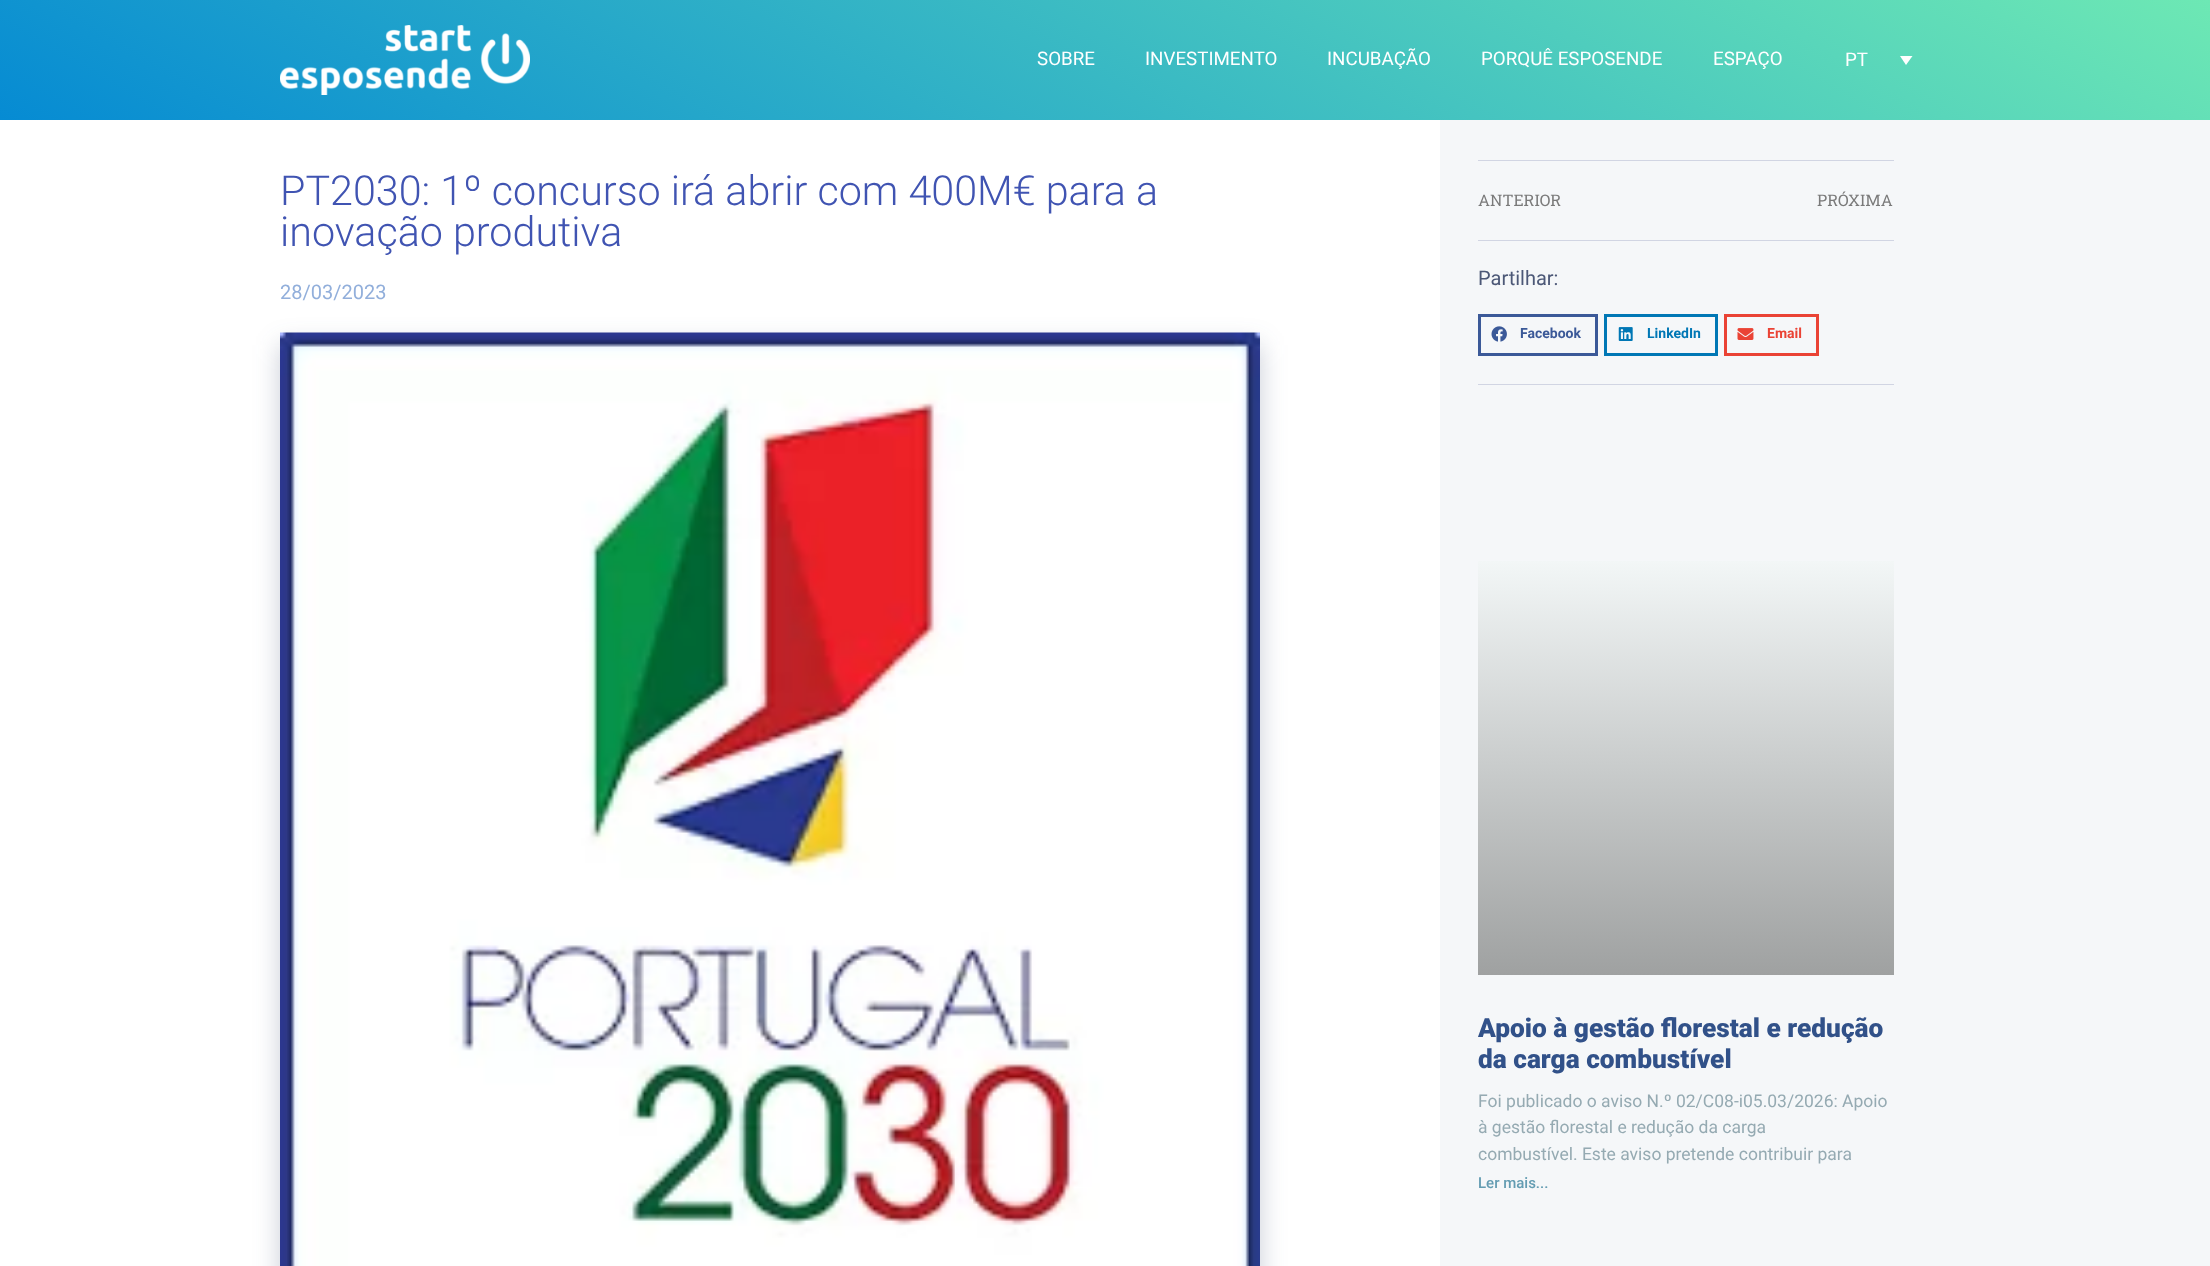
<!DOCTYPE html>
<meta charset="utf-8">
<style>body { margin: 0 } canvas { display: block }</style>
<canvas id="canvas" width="2210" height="1266"></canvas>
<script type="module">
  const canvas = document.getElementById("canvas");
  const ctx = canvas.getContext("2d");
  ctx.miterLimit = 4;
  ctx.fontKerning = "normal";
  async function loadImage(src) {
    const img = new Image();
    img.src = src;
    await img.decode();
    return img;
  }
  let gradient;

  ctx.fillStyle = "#ffffff";
  ctx.fillRect(0, 0, 2210, 1266);
  gradient = ctx.createLinearGradient(803, 583, 1407, -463);
  gradient.addColorStop(0, "#068bd3");
  gradient.addColorStop(1, "#6de8b4");
  ctx.fillStyle = gradient;
  ctx.fillRect(0, 0, 2210, 120);
  ctx.drawImage(await loadImage("img1.png"), 280, 25, 250, 70);
  ctx.font = "18.75px Roboto";
  ctx.fillStyle = "#ffffff";
  ctx.fillText("SOBRE", 1037, 65);
  ctx.fillText("INVESTIMENTO", 1145, 65);
  ctx.fillText("INCUBAÇÃO", 1327, 65);
  ctx.fillText("PORQUÊ ESPOSENDE", 1481, 65);
  ctx.fillText("ESPAÇO", 1713, 65);
  ctx.fillText("PT", 1845, 66);
  ctx.beginPath();
  ctx.moveTo(1900, 56);
  ctx.lineTo(1912.5, 56);
  ctx.lineTo(1906, 65);
  ctx.closePath();
  ctx.fill();
  ctx.font = "300 41.25px Roboto";
  ctx.fillStyle = "#4054b2";
  ctx.fillText("PT2030: 1º concurso irá abrir com 400M€ para a", 280, 205);
  ctx.fillText("inovação produtiva", 280, 246);
  ctx.font = "20px Roboto";
  ctx.fillStyle = "#92afdb";
  ctx.fillText("28/03/2023", 280, 299);
  ctx.fillStyle = "rgba(47, 61, 102, 0.26)";
  ctx.filter = "blur(13px)";
  ctx.beginPath();
  ctx.rect(280, 345, 980, 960);
  ctx.fill();
  ctx.filter = "none";
  ctx.drawImage(await loadImage("img2.png"), 280, 332, 980, 934);
  ctx.fillStyle = "#f5f7f9";
  ctx.fillRect(1440, 120, 770, 1146);
  ctx.fillStyle = "#d1d5e3";
  ctx.fillRect(1478, 160, 416, 1);
  ctx.font = "16px Roboto Slab";
  ctx.fillStyle = "#7a7a7a";
  ctx.fillText("ANTERIOR", 1478, 206);
  ctx.fillText("PRÓXIMA", 1817, 206);
  ctx.fillStyle = "#d1d5e3";
  ctx.fillRect(1478, 240, 416, 1);
  ctx.font = "20px Roboto";
  ctx.fillStyle = "#4c5877";
  ctx.fillText("Partilhar:", 1478, 285);
  ctx.strokeStyle = "#3b5998";
  ctx.lineWidth = 3;
  ctx.strokeRect(1479.5, 315.5, 117, 39);
  ctx.drawImage(await loadImage("img3.png"), 1491, 326, 16, 16);
  ctx.font = "bold 14px Roboto";
  ctx.fillStyle = "#3b5998";
  ctx.fillText("Facebook", 1520, 338);
  ctx.strokeStyle = "#0077b5";
  ctx.strokeRect(1605.5, 315.5, 111, 39);
  ctx.drawImage(await loadImage("img4.png"), 1618, 327, 15, 14);
  ctx.fillStyle = "#0077b5";
  ctx.fillText("LinkedIn", 1647, 338);
  ctx.strokeStyle = "#ea4335";
  ctx.strokeRect(1725.5, 315.5, 92, 39);
  ctx.drawImage(await loadImage("img5.png"), 1737, 328, 17, 12);
  ctx.fillStyle = "#ea4335";
  ctx.fillText("Email", 1767, 338);
  ctx.fillStyle = "#d1d5e3";
  ctx.fillRect(1478, 384, 416, 1);
  gradient = ctx.createLinearGradient(1686, 975, 1686, 413);
  gradient.addColorStop(0, "#9fa1a1");
  gradient.addColorStop(0.75, "#f4f8f8");
  ctx.fillStyle = gradient;
  ctx.fillRect(1478, 561, 416, 414);
  ctx.font = "900 26.25px Roboto";
  ctx.fillStyle = "#315189";
  ctx.fillText("Apoio à gestão florestal e redução", 1478, 1037);
  ctx.fillText("da carga combustível", 1478, 1068);
  ctx.font = "17.5px Roboto";
  ctx.fillStyle = "#95aab2";
  ctx.fillText("Foi publicado o aviso N.º 02/C08-i05.03/2026: Apoio", 1478, 1107);
  ctx.fillText("à gestão florestal e redução da carga", 1478, 1133);
  ctx.fillText("combustível. Este aviso pretende contribuir para", 1478, 1160);
  ctx.font = "500 15px Roboto";
  ctx.fillStyle = "#639cb2";
  ctx.fillText("Ler mais...", 1478, 1188);
</script>
